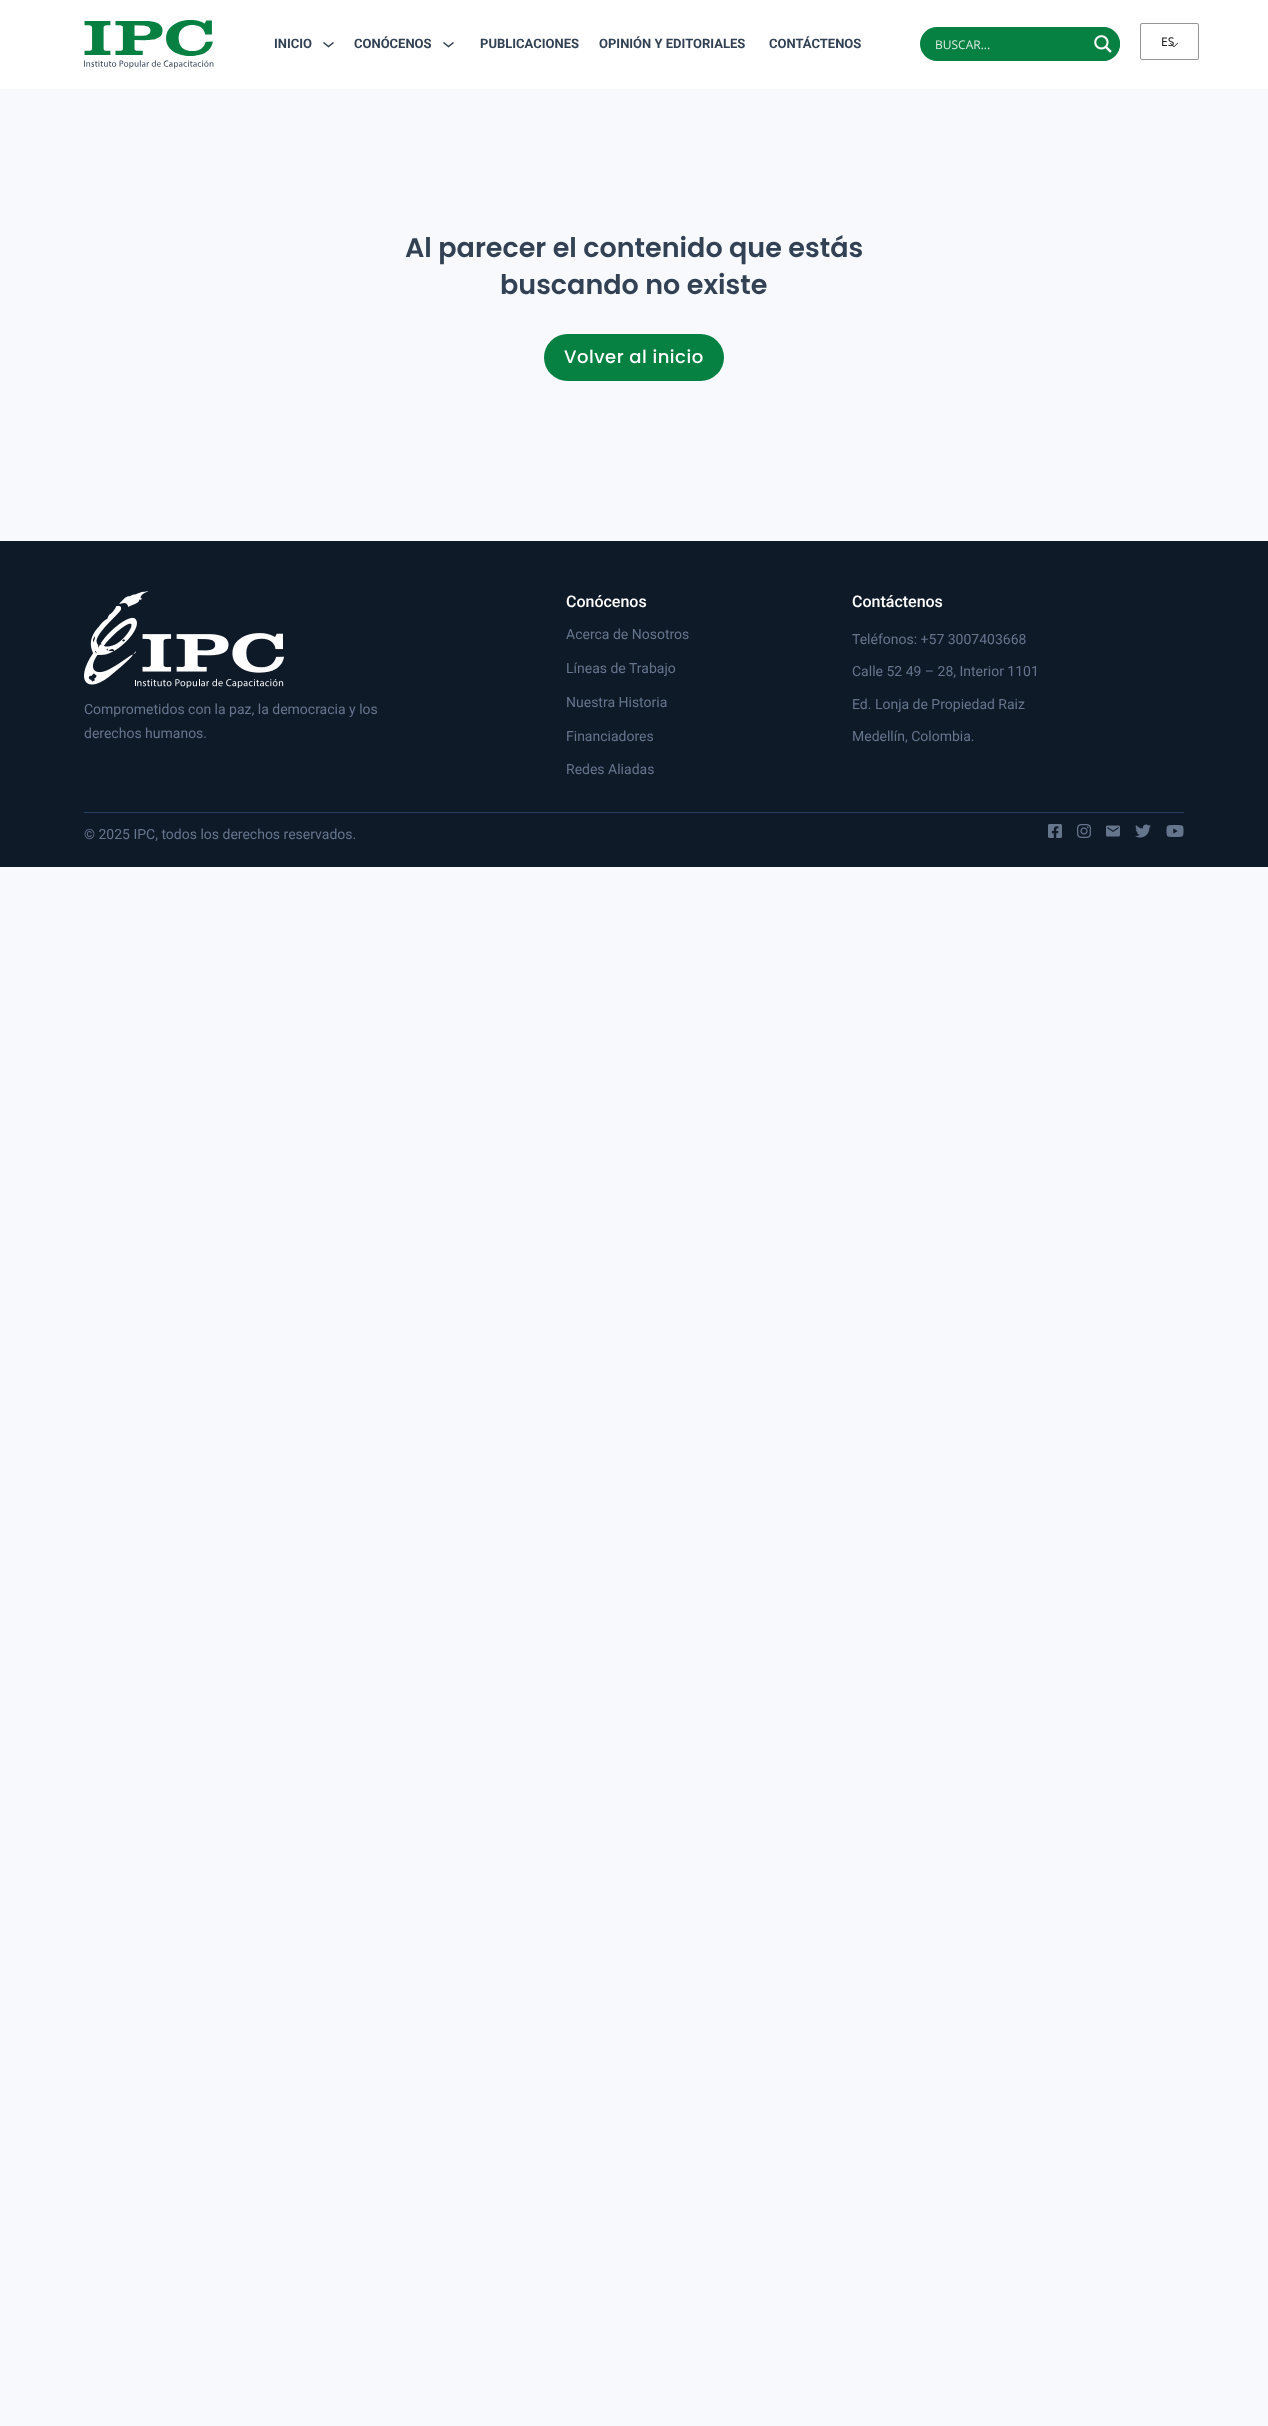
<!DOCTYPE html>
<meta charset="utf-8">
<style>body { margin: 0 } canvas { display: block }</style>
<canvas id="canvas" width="1268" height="2426"></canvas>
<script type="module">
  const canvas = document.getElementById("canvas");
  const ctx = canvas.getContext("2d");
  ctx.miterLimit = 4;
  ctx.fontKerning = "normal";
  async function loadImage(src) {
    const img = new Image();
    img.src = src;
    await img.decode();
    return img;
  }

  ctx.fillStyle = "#f7f9fc";
  ctx.fillRect(0, 0, 1268, 2426);
  ctx.fillStyle = "#ffffff";
  ctx.fillRect(0, 0, 1268, 89);
  ctx.drawImage(await loadImage("img1.png"), 84, 20, 130, 49);
  ctx.font = "bold 13px Roboto";
  ctx.fillStyle = "#324154";
  ctx.fillText("INICIO", 274, 48);
  ctx.beginPath();
  ctx.moveTo(323.5, 42.5);
  ctx.lineTo(328.5, 46.5);
  ctx.lineTo(333.5, 42.5);
  ctx.strokeStyle = "#324154";
  ctx.lineWidth = 1.6;
  ctx.stroke();
  ctx.fillText("CONÓCENOS", 354, 48);
  ctx.beginPath();
  ctx.moveTo(443.5, 42.5);
  ctx.lineTo(448.5, 46.5);
  ctx.lineTo(453.5, 42.5);
  ctx.stroke();
  ctx.fillText("PUBLICACIONES", 480, 48);
  ctx.fillText("OPINIÓN Y EDITORIALES", 599, 48);
  ctx.fillText("CONTÁCTENOS", 769, 48);
  ctx.fillStyle = "#068142";
  ctx.beginPath();
  ctx.roundRect(920, 27, 200, 34, 17);
  ctx.fill();
  ctx.font = "12px Open Sans";
  ctx.fillStyle = "#daece3";
  ctx.fillText("BUSCAR...", 935, 49);
  ctx.fillStyle = "#068142";
  ctx.beginPath();
  ctx.roundRect(1086, 27, 34, 34, [0, 17, 17, 0]);
  ctx.fill();
  ctx.drawImage(await loadImage("img2.png"), 1094, 35, 18, 18);
  ctx.drawImage(await loadImage("img3.png"), 1170, 42, 8, 5);
  ctx.beginPath();
  ctx.roundRect(1140.5, 23.5, 58, 36, 1.5);
  ctx.strokeStyle = "#949494";
  ctx.lineWidth = 1;
  ctx.stroke();
  ctx.font = "12px Noto Sans";
  ctx.fillStyle = "#1e1e1e";
  ctx.fillText("ES", 1161, 46);
  ctx.font = "600 27px Poppins";
  ctx.fillStyle = "#324154";
  ctx.fillText("Al parecer el contenido que estás", 405, 257);
  ctx.fillText("buscando no existe", 500, 294);
  ctx.fillStyle = "#068142";
  ctx.beginPath();
  ctx.roundRect(544, 334, 180, 47, 23.5);
  ctx.fill();
  ctx.letterSpacing = "0.5px";
  ctx.font = "500 18px Poppins";
  ctx.fillStyle = "#ffffff";
  ctx.fillText("Volver al inicio", 564, 363);
  ctx.fillStyle = "#0f1a29";
  ctx.fillRect(0, 541, 1268, 326);
  ctx.drawImage(await loadImage("img4.png"), 84, 591, 200, 97);
  ctx.letterSpacing = "0px";
  ctx.font = "14px Roboto";
  ctx.fillStyle = "#65758c";
  ctx.fillText("Comprometidos con la paz, la democracia y los", 84, 714);
  ctx.fillText("derechos humanos.", 84, 738);
  ctx.font = "500 16px Roboto";
  ctx.fillStyle = "#ffffff";
  ctx.fillText("Conócenos", 566, 607);
  ctx.font = "14px Roboto";
  ctx.fillStyle = "#65758c";
  ctx.fillText("Acerca de Nosotros", 566, 639);
  ctx.fillText("Líneas de Trabajo", 566, 673);
  ctx.fillText("Nuestra Historia", 566, 707);
  ctx.fillText("Financiadores", 566, 741);
  ctx.fillText("Redes Aliadas", 566, 774);
  ctx.font = "500 16px Roboto";
  ctx.fillStyle = "#ffffff";
  ctx.fillText("Contáctenos", 852, 607);
  ctx.font = "14px Roboto";
  ctx.fillStyle = "#65758c";
  ctx.fillText("Teléfonos: +57 3007403668", 852, 644);
  ctx.fillText("Calle 52 49 – 28, Interior 1101", 852, 676);
  ctx.fillText("Ed. Lonja de Propiedad Raiz", 852, 709);
  ctx.fillText("Medellín, Colombia.", 852, 741);
  ctx.fillStyle = "#283f60";
  ctx.fillRect(84, 812, 1100, 1);
  ctx.fillStyle = "#65758c";
  ctx.fillText("© 2025 IPC, todos los derechos reservados.", 84, 839);
  ctx.drawImage(await loadImage("img5.png"), 1048, 824, 14, 14);
  ctx.drawImage(await loadImage("img6.png"), 1077, 824, 14, 14);
  ctx.drawImage(await loadImage("img7.png"), 1106, 825, 14, 12);
  ctx.drawImage(await loadImage("img8.png"), 1135, 824, 16, 14);
  ctx.drawImage(await loadImage("img9.png"), 1166, 825, 18, 12);
</script>
